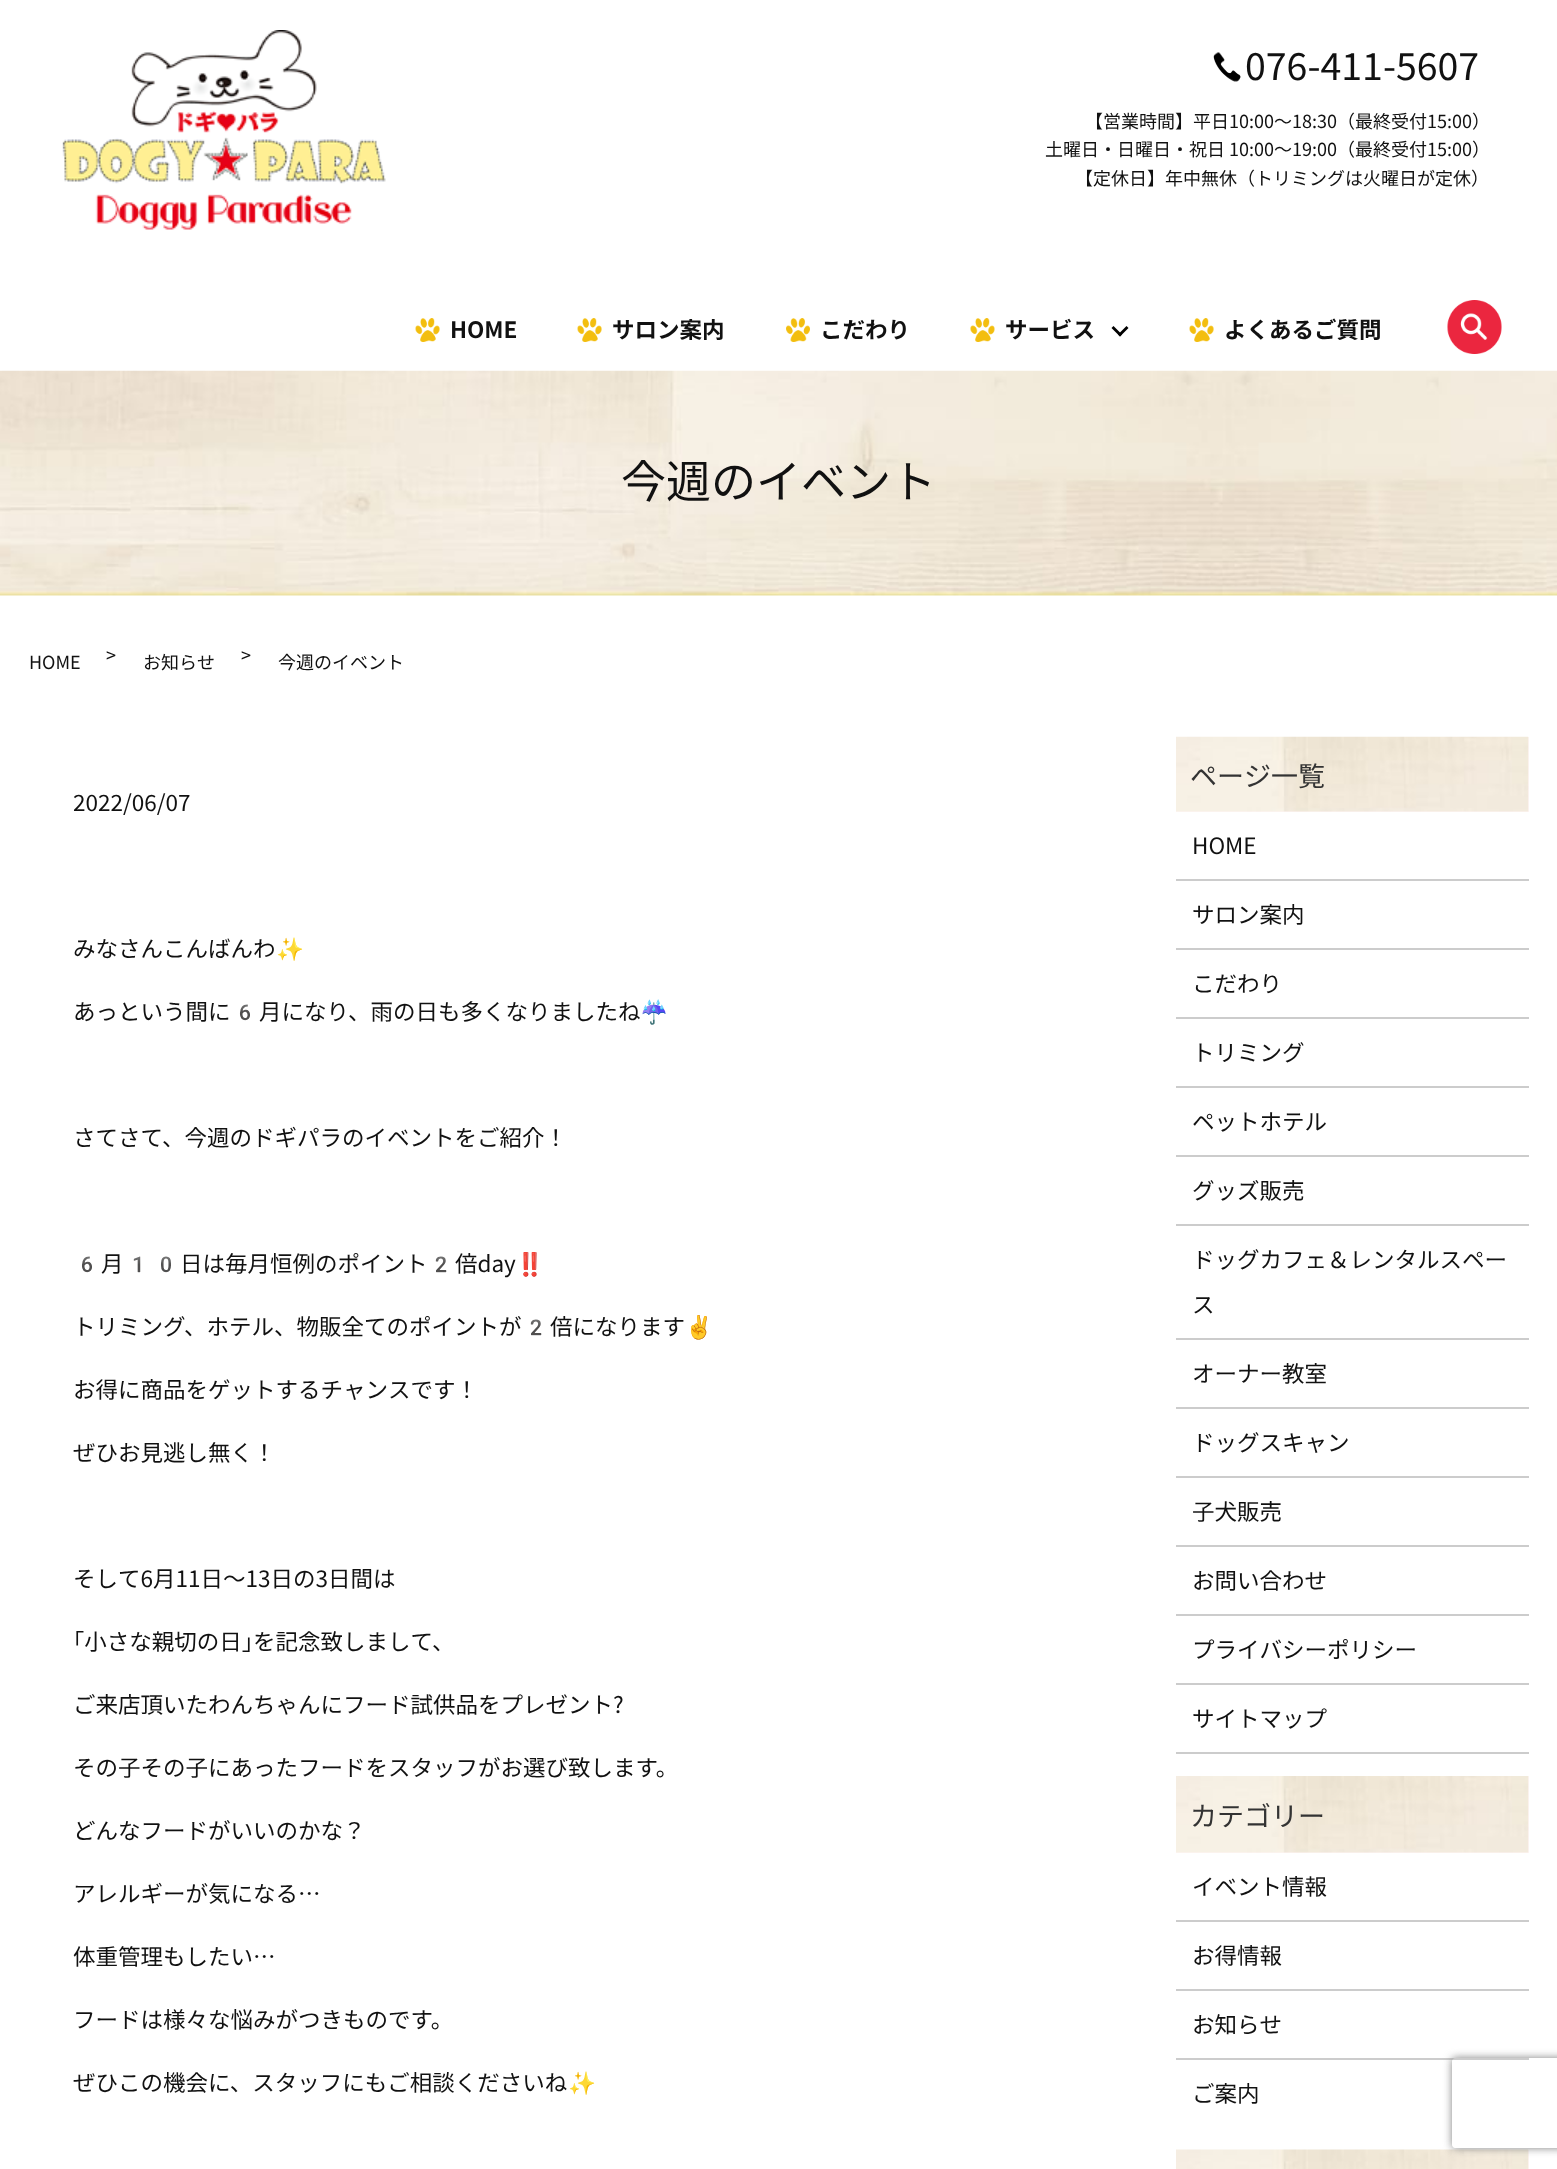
<!DOCTYPE html>
<meta charset="utf-8">
<style>body { margin: 0 } canvas { display: block }</style>
<canvas id="canvas" width="1557" height="2169"></canvas>
<script type="module">
  const canvas = document.getElementById("canvas");
  const ctx = canvas.getContext("2d");
  ctx.miterLimit = 4;
  ctx.fontKerning = "normal";
  async function loadImage(src) {
    const img = new Image();
    img.src = src;
    await img.decode();
    return img;
  }

  ctx.fillStyle = "#ffffff";
  ctx.fillRect(0, 0, 1557, 2169);
  ctx.drawImage(await loadImage("img1.png"), 62, 30, 324, 200);
  ctx.drawImage(await loadImage("img2.png"), 1213, 52, 28, 30);
  ctx.font = "37.5px Noto Sans JP";
  ctx.fillStyle = "#111111";
  ctx.fillText("076-411-5607", 1245, 80);
  ctx.font = "18px Noto Sans JP";
  ctx.fillText("【営業時間】平日10:00～18:30（最終受付15:00）", 1085, 128);
  ctx.fillText("土曜日・日曜日・祝日 10:00～19:00（最終受付15:00）", 1045, 156);
  ctx.fillText("【定休日】年中無休（トリミングは火曜日が定休）", 1075, 185);
  ctx.drawImage(await loadImage("img3.png"), 415, 318, 25, 24);
  ctx.font = "bold 22.5px Noto Sans JP";
  ctx.fillText("HOME", 450, 338);
  ctx.drawImage(await loadImage("img3.png"), 577, 318, 25, 24);
  ctx.fillText("サロン案内", 612, 338);
  ctx.drawImage(await loadImage("img4.png"), 786, 318, 24, 24);
  ctx.fillText("こだわり", 820, 338);
  ctx.drawImage(await loadImage("img5.png"), 970, 318, 25, 24);
  ctx.fillText("サービス", 1005, 338);
  ctx.fillStyle = "#000000";
  ctx.beginPath();
  ctx.moveTo(1128.5, 328);
  ctx.lineTo(1120, 336.5);
  ctx.lineTo(1118, 334.5);
  ctx.lineTo(1126.5, 326);
  ctx.closePath();
  ctx.fill();
  ctx.beginPath();
  ctx.moveTo(1122, 334.5);
  ctx.lineTo(1120, 336.5);
  ctx.lineTo(1111.5, 328);
  ctx.lineTo(1113.5, 326);
  ctx.closePath();
  ctx.fill();
  ctx.drawImage(await loadImage("img3.png"), 1189, 318, 25, 24);
  ctx.fillStyle = "#111111";
  ctx.fillText("よくあるご質問", 1224, 338);
  ctx.drawImage(await loadImage("img6.png"), 1447, 300, 55, 54);
  ctx.drawImage(await loadImage("img7.png"), 0, 370, 1557, 226);
  ctx.font = "45px Noto Sans JP";
  ctx.fillText("今週のイベント", 621, 498);
  ctx.font = "18px Noto Sans JP";
  ctx.fillText("HOME", 29, 669);
  ctx.fillText(">", 106, 662);
  ctx.fillText("お知らせ", 143, 669);
  ctx.fillText(">", 241, 662);
  ctx.fillText("今週のイベント", 278, 669);
  ctx.font = "22.5px Noto Sans JP";
  ctx.fillText("2022/06/07", 73, 811);
  ctx.fillText("みなさんこんばんわ", 73, 957);
  ctx.font = "22.5px Noto Color Emoji";
  ctx.fillText("✨", 276, 957);
  ctx.font = "22.5px Noto Sans JP";
  ctx.fillText("あっという間に", 73, 1020);
  ctx.font = "22.5px Noto Color Emoji";
  ctx.fillText("6", 231, 1020);
  ctx.font = "22.5px Noto Sans JP";
  ctx.fillText("月になり、雨の日も多くなりましたね", 259, 1020);
  ctx.font = "22.5px Noto Color Emoji";
  ctx.fillText("☔️", 640, 1020);
  ctx.font = "22.5px Noto Sans JP";
  ctx.fillText("さてさて、今週のドギパラのイベントをご紹介！", 73, 1146);
  ctx.font = "22.5px Noto Color Emoji";
  ctx.fillText("6", 73, 1272);
  ctx.font = "22.5px Noto Sans JP";
  ctx.fillText("月", 101, 1272);
  ctx.font = "22.5px Noto Color Emoji";
  ctx.fillText("10", 124, 1272);
  ctx.font = "22.5px Noto Sans JP";
  ctx.fillText("日は毎月恒例のポイント", 180, 1272);
  ctx.font = "22.5px Noto Color Emoji";
  ctx.fillText("2", 427, 1272);
  ctx.font = "22.5px Noto Sans JP";
  ctx.fillText("倍day", 455, 1272);
  ctx.font = "22.5px Noto Color Emoji";
  ctx.fillText("‼️", 516, 1272);
  ctx.font = "22.5px Noto Sans JP";
  ctx.fillText("トリミング、ホテル、物販全てのポイントが", 73, 1335);
  ctx.font = "22.5px Noto Color Emoji";
  ctx.fillText("2", 522, 1335);
  ctx.font = "22.5px Noto Sans JP";
  ctx.fillText("倍になります", 550, 1335);
  ctx.font = "22.5px Noto Color Emoji";
  ctx.fillText("✌️", 685, 1335);
  ctx.font = "22.5px Noto Sans JP";
  ctx.fillText("お得に商品をゲットするチャンスです！", 73, 1398);
  ctx.fillText("ぜひお見逃し無く！", 73, 1461);
  ctx.fillText("そして6月11日〜13日の3日間は", 73, 1587);
  ctx.fillText("｢小さな親切の日｣を記念致しまして、", 73, 1650);
  ctx.fillText("ご来店頂いたわんちゃんにフード試供品をプレゼント?", 73, 1713);
  ctx.fillText("その子その子にあったフードをスタッフがお選び致します。", 73, 1776);
  ctx.fillText("どんなフードがいいのかな？", 73, 1839);
  ctx.fillText("アレルギーが気になる…", 73, 1902);
  ctx.fillText("体重管理もしたい…", 73, 1965);
  ctx.fillText("フードは様々な悩みがつきものです。", 73, 2028);
  ctx.fillText("ぜひこの機会に、スタッフにもご相談くださいね", 73, 2091);
  ctx.font = "22.5px Noto Color Emoji";
  ctx.fillText("✨", 568, 2091);
  ctx.fillStyle = "#fef4f5";
  ctx.fillRect(1176, 737, 353, 75);
  ctx.drawImage(await loadImage("img8.png"), 1176, 736, 353, 76);
  ctx.font = "27px Noto Sans JP";
  ctx.fillStyle = "#333333";
  ctx.fillText("ページ一覧", 1190, 786);
  ctx.fillStyle = "#cccccc";
  ctx.fillRect(1176, 879, 353, 2);
  ctx.font = "22.5px Noto Sans JP";
  ctx.fillStyle = "#111111";
  ctx.fillText("HOME", 1192, 854);
  ctx.fillStyle = "#cccccc";
  ctx.fillRect(1176, 948, 353, 2);
  ctx.fillStyle = "#111111";
  ctx.fillText("サロン案内", 1192, 923);
  ctx.fillStyle = "#cccccc";
  ctx.fillRect(1176, 1017, 353, 2);
  ctx.fillStyle = "#111111";
  ctx.fillText("こだわり", 1192, 992);
  ctx.fillStyle = "#cccccc";
  ctx.fillRect(1176, 1086, 353, 2);
  ctx.fillStyle = "#111111";
  ctx.fillText("トリミング", 1192, 1061);
  ctx.fillStyle = "#cccccc";
  ctx.fillRect(1176, 1155, 353, 2);
  ctx.fillStyle = "#111111";
  ctx.fillText("ペットホテル", 1192, 1130);
  ctx.fillStyle = "#cccccc";
  ctx.fillRect(1176, 1224, 353, 2);
  ctx.fillStyle = "#111111";
  ctx.fillText("グッズ販売", 1192, 1199);
  ctx.fillStyle = "#cccccc";
  ctx.fillRect(1176, 1338, 353, 2);
  ctx.fillStyle = "#111111";
  ctx.fillText("ドッグカフェ＆レンタルスペー", 1192, 1268);
  ctx.fillText("ス", 1192, 1313);
  ctx.fillStyle = "#cccccc";
  ctx.fillRect(1176, 1407, 353, 2);
  ctx.fillStyle = "#111111";
  ctx.fillText("オーナー教室", 1192, 1382);
  ctx.fillStyle = "#cccccc";
  ctx.fillRect(1176, 1476, 353, 2);
  ctx.fillStyle = "#111111";
  ctx.fillText("ドッグスキャン", 1192, 1451);
  ctx.fillStyle = "#cccccc";
  ctx.fillRect(1176, 1545, 353, 2);
  ctx.fillStyle = "#111111";
  ctx.fillText("子犬販売", 1192, 1520);
  ctx.fillStyle = "#cccccc";
  ctx.fillRect(1176, 1614, 353, 2);
  ctx.fillStyle = "#111111";
  ctx.fillText("お問い合わせ", 1192, 1589);
  ctx.fillStyle = "#cccccc";
  ctx.fillRect(1176, 1683, 353, 2);
  ctx.fillStyle = "#111111";
  ctx.fillText("プライバシーポリシー", 1192, 1658);
  ctx.fillStyle = "#cccccc";
  ctx.fillRect(1176, 1752, 353, 2);
  ctx.fillStyle = "#111111";
  ctx.fillText("サイトマップ", 1192, 1727);
  ctx.fillStyle = "#fef4f5";
  ctx.fillRect(1176, 1776, 353, 77);
  ctx.drawImage(await loadImage("img9.png"), 1176, 1776, 353, 77);
  ctx.font = "27px Noto Sans JP";
  ctx.fillStyle = "#333333";
  ctx.fillText("カテゴリー", 1190, 1826);
  ctx.fillStyle = "#cccccc";
  ctx.fillRect(1176, 1920, 353, 2);
  ctx.font = "22.5px Noto Sans JP";
  ctx.fillStyle = "#111111";
  ctx.fillText("イベント情報", 1192, 1895);
  ctx.fillStyle = "#cccccc";
  ctx.fillRect(1176, 1989, 353, 2);
  ctx.fillStyle = "#111111";
  ctx.fillText("お得情報", 1192, 1964);
  ctx.fillStyle = "#cccccc";
  ctx.fillRect(1176, 2058, 353, 2);
  ctx.fillStyle = "#111111";
  ctx.fillText("お知らせ", 1192, 2033);
  ctx.fillText("ご案内", 1192, 2102);
  ctx.fillStyle = "#fef4f5";
  ctx.fillRect(1528, 2150, 1, 19);
  ctx.drawImage(await loadImage("img10.png"), 1176, 2149, 353, 20);
  ctx.save();
  ctx.beginPath();
  ctx.moveTo(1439, 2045);
  ctx.lineTo(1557, 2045);
  ctx.lineTo(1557, 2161);
  ctx.lineTo(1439, 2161);
  ctx.closePath();
  ctx.moveTo(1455, 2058);
  ctx.lineTo(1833, 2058);
  ctx.bezierCurveTo(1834.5, 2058, 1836, 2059.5, 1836, 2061);
  ctx.lineTo(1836, 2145);
  ctx.bezierCurveTo(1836, 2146.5, 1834.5, 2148, 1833, 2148);
  ctx.lineTo(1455, 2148);
  ctx.bezierCurveTo(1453.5, 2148, 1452, 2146.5, 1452, 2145);
  ctx.lineTo(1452, 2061);
  ctx.bezierCurveTo(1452, 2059.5, 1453.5, 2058, 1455, 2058);
  ctx.closePath();
  ctx.clip("evenodd");
  ctx.fillStyle = "#808080";
  ctx.filter = "blur(4px)";
  ctx.beginPath();
  ctx.roundRect(1452, 2058, 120, 90, 3);
  ctx.fill();
  ctx.filter = "none";
  ctx.restore();
</script>
